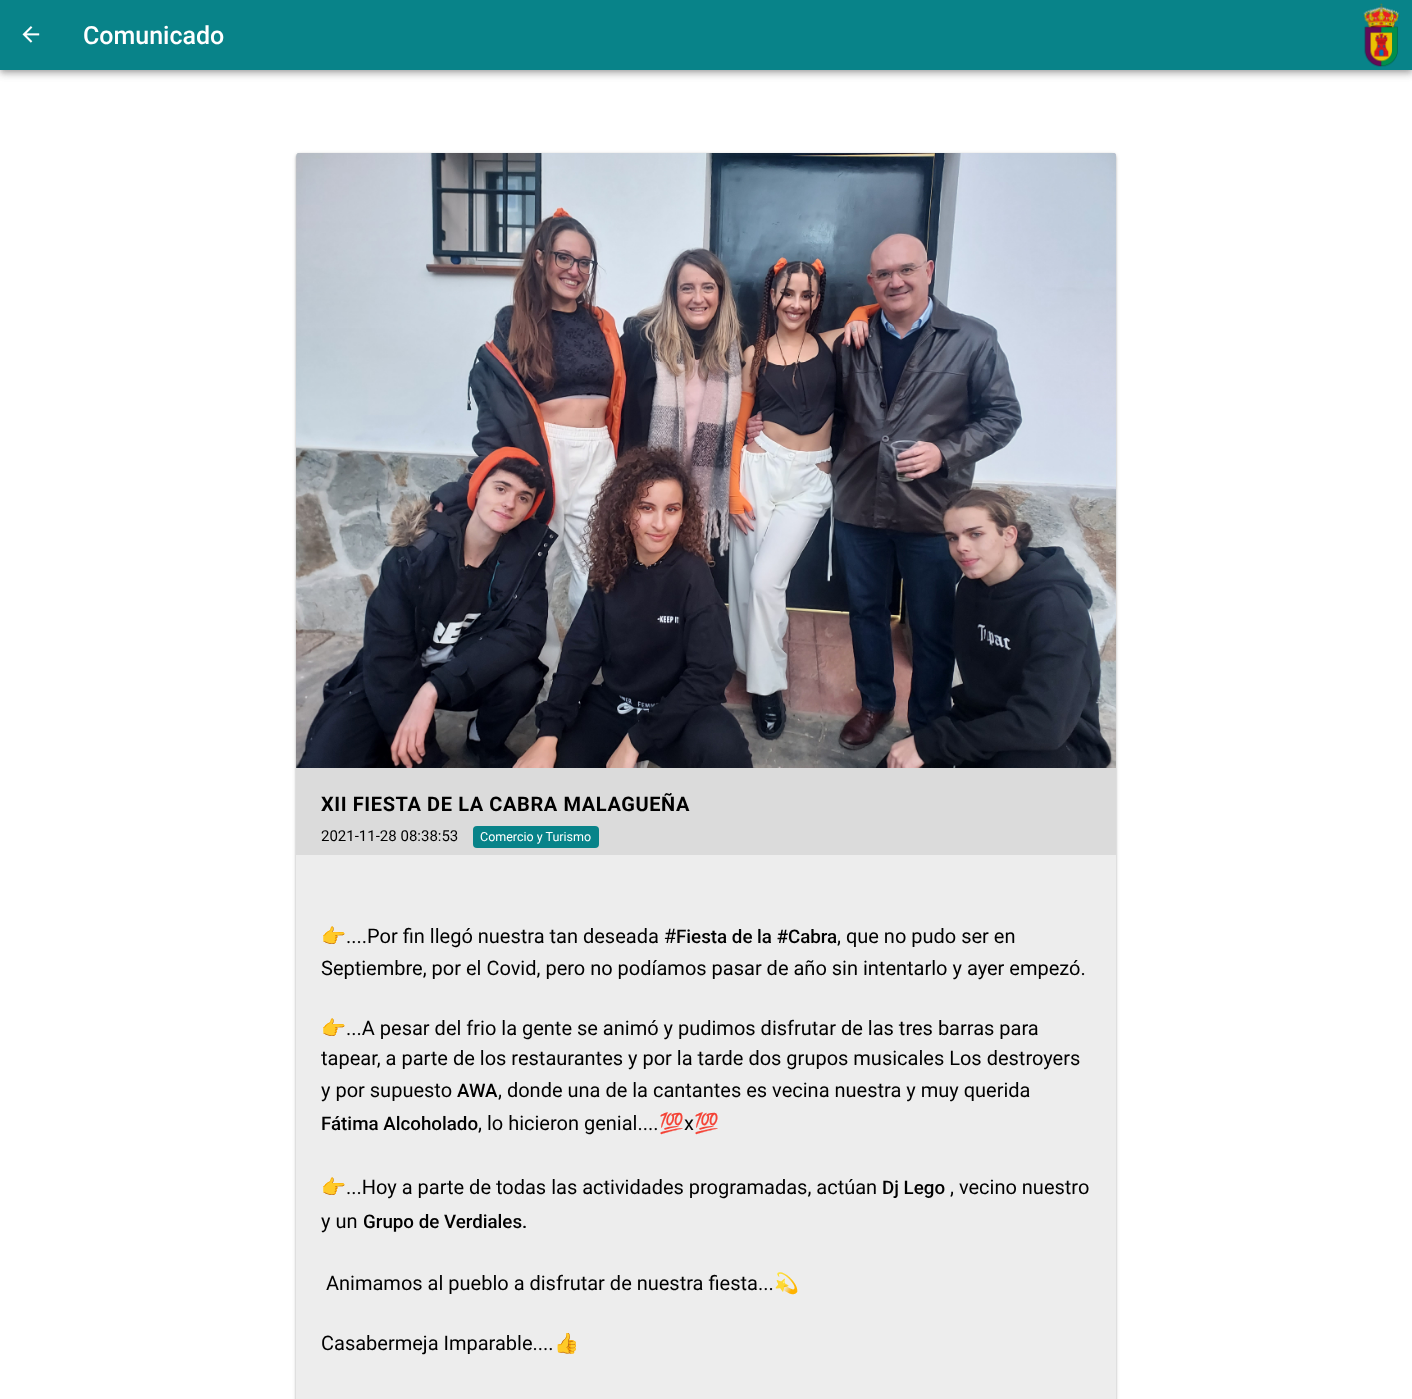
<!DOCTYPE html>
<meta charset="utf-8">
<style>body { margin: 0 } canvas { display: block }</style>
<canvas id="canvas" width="1412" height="1399"></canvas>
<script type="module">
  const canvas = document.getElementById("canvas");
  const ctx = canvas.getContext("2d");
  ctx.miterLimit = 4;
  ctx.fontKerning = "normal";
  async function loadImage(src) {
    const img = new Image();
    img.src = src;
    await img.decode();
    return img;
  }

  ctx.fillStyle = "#ffffff";
  ctx.fillRect(0, 0, 1412, 1399);
  ctx.fillStyle = "rgba(0, 0, 0, 0.12)";
  ctx.filter = "blur(6px)";
  ctx.beginPath();
  ctx.rect(0, 1, 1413, 70);
  ctx.fill();
  ctx.filter = "none";
  ctx.fillStyle = "rgba(0, 0, 0, 0.14)";
  ctx.filter = "blur(3px)";
  ctx.beginPath();
  ctx.rect(0, 5, 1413, 70);
  ctx.fill();
  ctx.filter = "none";
  ctx.fillStyle = "rgba(0, 0, 0, 0.2)";
  ctx.filter = "blur(2.5px)";
  ctx.beginPath();
  ctx.rect(1, 4, 1410, 67);
  ctx.fill();
  ctx.filter = "none";
  ctx.fillStyle = "#088389";
  ctx.fillRect(0, 0, 1412, 70);
  ctx.drawImage(await loadImage("img1.png"), 22, 26, 18, 17);
  ctx.font = "500 25px Roboto";
  ctx.fillStyle = "#ffffff";
  ctx.fillText("Comunicado", 83, 44);
  ctx.drawImage(await loadImage("img2.png"), 1363, 3, 37, 64);
  ctx.fillStyle = "rgba(0, 0, 0, 0.24)";
  ctx.filter = "blur(1px)";
  ctx.beginPath();
  ctx.roundRect(296, 154, 820, 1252, 4);
  ctx.fill();
  ctx.filter = "none";
  ctx.fillStyle = "rgba(0, 0, 0, 0.12)";
  ctx.filter = "blur(2px)";
  ctx.beginPath();
  ctx.roundRect(296, 154, 820, 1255, 4);
  ctx.fill();
  ctx.filter = "none";
  ctx.drawImage(await loadImage("img3.png"), 296, 153, 820, 615);
  ctx.fillStyle = "#ededed";
  ctx.fillRect(296, 855, 820, 544);
  ctx.fillStyle = "#dbdbdb";
  ctx.fillRect(296, 768, 820, 87);
  ctx.letterSpacing = "0.6px";
  ctx.font = "bold 20px Roboto";
  ctx.fillStyle = "#000000";
  ctx.fillText("XII FIESTA DE LA CABRA MALAGUEÑA", 321, 811);
  ctx.letterSpacing = "0px";
  ctx.font = "15px Roboto";
  ctx.fillText("2021-11-28 08:38:53", 321, 841);
  ctx.fillStyle = "#088389";
  ctx.beginPath();
  ctx.roundRect(473, 826, 126, 22, 4);
  ctx.fill();
  ctx.font = "12.5px Roboto";
  ctx.fillStyle = "#ffffff";
  ctx.fillText("Comercio y Turismo", 480, 841);
  ctx.font = "20px Noto Color Emoji";
  ctx.fillStyle = "#000000";
  ctx.fillText("👉", 321, 943);
  ctx.font = "20px Roboto";
  ctx.fillText("....Por fin llegó nuestra tan deseada #", 346, 943);
  ctx.font = "500 18.75px Roboto";
  ctx.fillText("Fiesta de la #Cabra", 676, 943);
  ctx.font = "20px Roboto";
  ctx.fillText(", que no pudo ser en", 837, 943);
  ctx.fillText("Septiembre, por el Covid, pero no podíamos pasar de año sin intentarlo y ayer empezó.", 321, 975);
  ctx.font = "20px Noto Color Emoji";
  ctx.fillText("👉", 321, 1035);
  ctx.font = "20px Roboto";
  ctx.fillText("...A pesar del frio la gente se animó y pudimos disfrutar de las tres barras para", 346, 1035);
  ctx.fillText("tapear, a parte de los restaurantes y por la tarde dos grupos musicales Los destroyers", 321, 1065);
  ctx.fillText("y por supuesto", 321, 1097);
  ctx.font = "500 18.75px Roboto";
  ctx.fillText("AWA", 457, 1097);
  ctx.font = "20px Roboto";
  ctx.fillText(", donde una de la cantantes es vecina nuestra y muy querida", 498, 1097);
  ctx.font = "500 18.75px Roboto";
  ctx.fillText("Fátima Alcoholado", 321, 1130);
  ctx.font = "20px Roboto";
  ctx.fillText(", lo hicieron genial....", 478, 1130);
  ctx.font = "20px Noto Color Emoji";
  ctx.fillText("💯", 659, 1130);
  ctx.font = "20px Roboto";
  ctx.fillText("x", 684, 1130);
  ctx.font = "20px Noto Color Emoji";
  ctx.fillText("💯", 694, 1130);
  ctx.fillText("👉", 321, 1194);
  ctx.font = "20px Roboto";
  ctx.fillText("...Hoy a parte de todas las actividades programadas, actúan", 346, 1194);
  ctx.font = "500 18.75px Roboto";
  ctx.fillText("Dj Lego", 882, 1194);
  ctx.font = "20px Roboto";
  ctx.fillText(", vecino nuestro", 950, 1194);
  ctx.fillText("y un", 321, 1228);
  ctx.font = "500 18.75px Roboto";
  ctx.fillText("Grupo de Verdiales.", 363, 1228);
  ctx.font = "20px Roboto";
  ctx.fillText("Animamos al pueblo a disfrutar de nuestra fiesta...", 326, 1290);
  ctx.font = "20px Noto Color Emoji";
  ctx.fillText("💫", 774, 1290);
  ctx.font = "20px Roboto";
  ctx.fillText("Casabermeja Imparable....", 321, 1350);
  ctx.font = "20px Noto Color Emoji";
  ctx.fillText("👍", 554, 1350);
</script>
